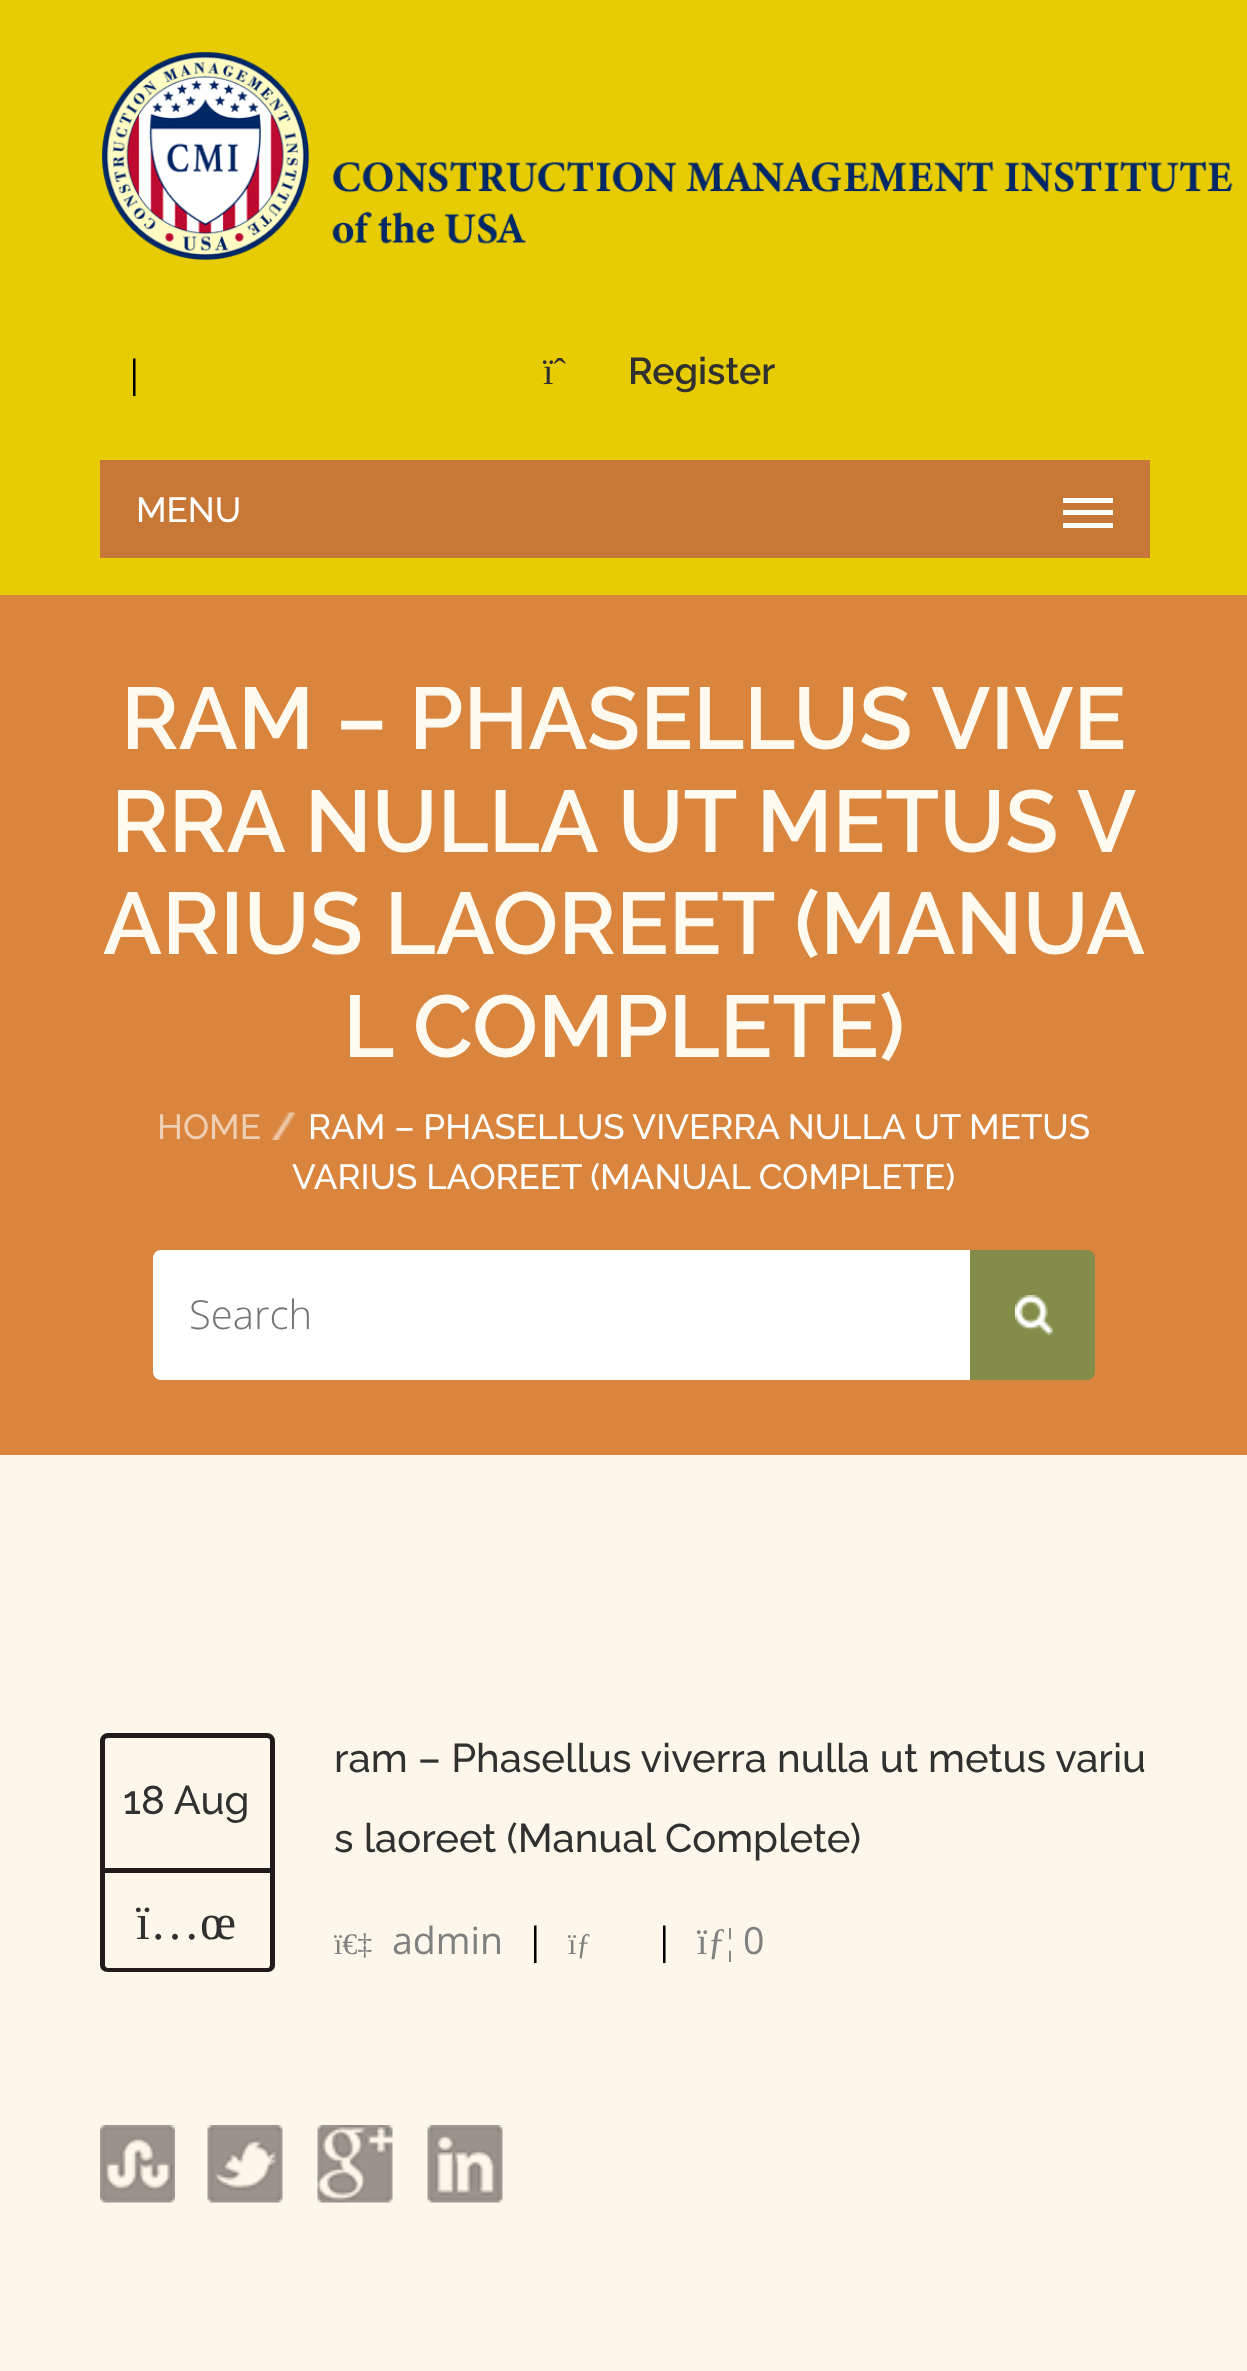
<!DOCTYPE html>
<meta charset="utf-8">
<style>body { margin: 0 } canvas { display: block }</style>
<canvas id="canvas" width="1247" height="2371"></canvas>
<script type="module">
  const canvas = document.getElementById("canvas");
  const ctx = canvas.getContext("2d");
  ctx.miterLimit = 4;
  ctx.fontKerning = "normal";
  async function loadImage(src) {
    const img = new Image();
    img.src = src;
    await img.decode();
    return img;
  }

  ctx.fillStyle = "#fdf6ea";
  ctx.fillRect(0, 0, 1247, 2371);
  ctx.fillStyle = "#e7cb03";
  ctx.fillRect(0, 0, 1247, 595);
  ctx.drawImage(await loadImage("img1.png"), 102, 52, 1131, 208);
  ctx.font = "37.5px Open Sans";
  ctx.fillStyle = "#000000";
  ctx.fillText("|", 124, 387);
  ctx.font = "37.5px Liberation Serif";
  ctx.fillStyle = "#303030";
  ctx.fillText("ïˆ", 543, 384);
  ctx.font = "600 37.5px Raleway";
  ctx.fillText("Register", 628, 384);
  ctx.fillStyle = "#c77836";
  ctx.fillRect(100, 460, 1050, 98);
  ctx.font = "500 35px Raleway";
  ctx.fillStyle = "#ffffff";
  ctx.fillText("MENU", 136, 522);
  ctx.fillRect(1063, 510, 50, 5);
  ctx.fillRect(1063, 498, 50, 5);
  ctx.fillRect(1063, 523, 50, 5);
  ctx.fillStyle = "#da853d";
  ctx.fillRect(0, 595, 1247, 860);
  ctx.font = "600 87.5px Raleway";
  ctx.fillStyle = "#fffaf0";
  ctx.fillText("RAM – PHASELLUS VIVE", 121, 749);
  ctx.fillText("RRA NULLA UT METUS V", 111, 852);
  ctx.fillText("ARIUS LAOREET (MANUA", 103, 954);
  ctx.fillText("L COMPLETE)", 343, 1057);
  ctx.font = "500 35px Raleway";
  ctx.fillStyle = "#f0ceb1";
  ctx.fillText("HOME", 157, 1139);
  ctx.drawImage(await loadImage("img2.png"), 270, 1112, 25, 28);
  ctx.fillStyle = "#ffffff";
  ctx.fillText("RAM – PHASELLUS VIVERRA NULLA UT METUS", 308, 1139);
  ctx.fillText("VARIUS LAOREET (MANUAL COMPLETE)", 292, 1189);
  ctx.beginPath();
  ctx.roundRect(153, 1250, 817, 130, [8, 0, 0, 8]);
  ctx.fill();
  ctx.font = "300 40px Open Sans";
  ctx.fillStyle = "#757575";
  ctx.fillText("Search", 189, 1329);
  ctx.fillStyle = "#838c48";
  ctx.beginPath();
  ctx.roundRect(970, 1250, 125, 130, [0, 8, 8, 0]);
  ctx.fill();
  ctx.drawImage(await loadImage("img3.png"), 1015, 1295, 38, 40);
  ctx.beginPath();
  ctx.roundRect(102.5, 1735.5, 170, 135, [5.5, 5.5, 0, 0]);
  ctx.strokeStyle = "#201c1d";
  ctx.lineWidth = 5;
  ctx.stroke();
  ctx.font = "500 40px Raleway";
  ctx.fillStyle = "#303030";
  ctx.fillText("18 Aug", 123, 1814);
  ctx.fillStyle = "#201c1d";
  ctx.beginPath();
  ctx.moveTo(100, 1872);
  ctx.lineTo(275, 1872);
  ctx.lineTo(275, 1965);
  ctx.bezierCurveTo(275, 1969, 272, 1972, 268, 1972);
  ctx.lineTo(108, 1972);
  ctx.bezierCurveTo(103, 1972, 100, 1969, 100, 1965);
  ctx.closePath();
  ctx.moveTo(105, 1872);
  ctx.lineTo(270, 1872);
  ctx.lineTo(270, 1965);
  ctx.bezierCurveTo(270, 1966, 269, 1968, 268, 1968);
  ctx.lineTo(108, 1968);
  ctx.bezierCurveTo(106, 1968, 105, 1966, 105, 1965);
  ctx.closePath();
  ctx.fill("evenodd");
  ctx.font = "50px Liberation Serif";
  ctx.fillStyle = "#303030";
  ctx.fillText("ï…œ", 136, 1939);
  ctx.font = "500 40px Raleway";
  ctx.fillText("ram – Phasellus viverra nulla ut metus variu", 334, 1772);
  ctx.fillText("s laoreet (Manual Complete)", 334, 1852);
  ctx.font = "30px Liberation Serif";
  ctx.fillStyle = "#808080";
  ctx.fillText("ï€‡", 334, 1954);
  ctx.font = "37.5px Open Sans";
  ctx.fillText("admin", 392, 1954);
  ctx.fillStyle = "#000000";
  ctx.fillText("|", 525, 1954);
  ctx.font = "30px Liberation Serif";
  ctx.fillStyle = "#808080";
  ctx.fillText("ïƒ", 568, 1954);
  ctx.font = "37.5px Open Sans";
  ctx.fillStyle = "#000000";
  ctx.fillText("|", 654, 1954);
  ctx.font = "37.5px Liberation Serif";
  ctx.fillStyle = "#808080";
  ctx.fillText("ïƒ¦", 697, 1954);
  ctx.font = "37.5px Open Sans";
  ctx.fillText("0", 743, 1954);
  ctx.drawImage(await loadImage("img4.png"), 100, 2125, 75, 78);
  ctx.drawImage(await loadImage("img5.png"), 207, 2125, 76, 78);
  ctx.drawImage(await loadImage("img6.png"), 317, 2125, 76, 78);
  ctx.drawImage(await loadImage("img7.png"), 427, 2125, 76, 78);
</script>
